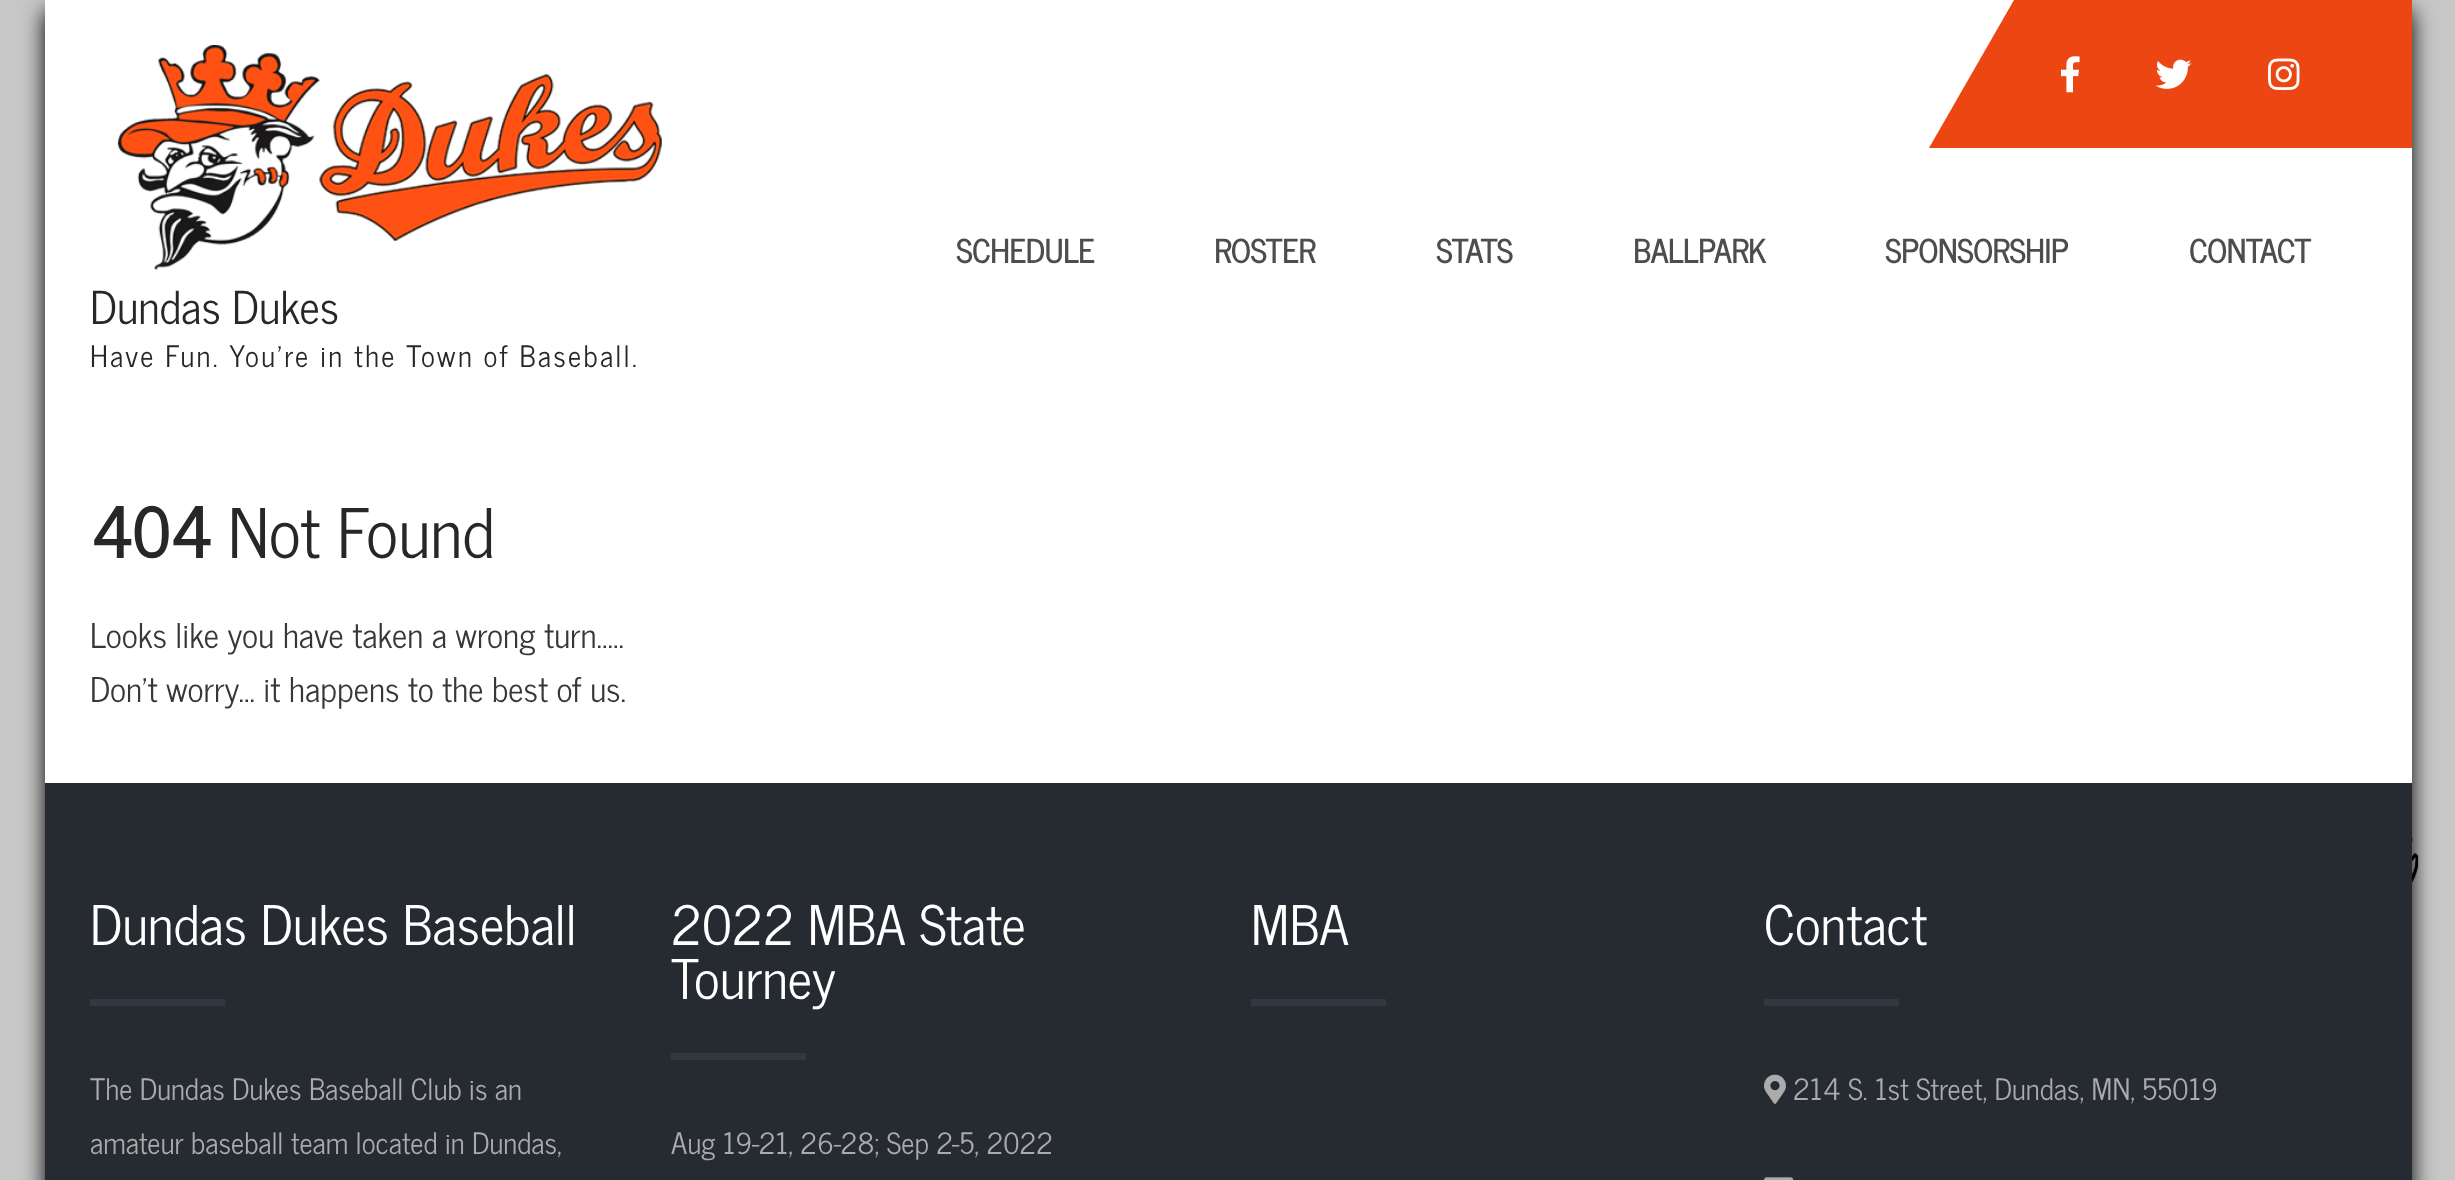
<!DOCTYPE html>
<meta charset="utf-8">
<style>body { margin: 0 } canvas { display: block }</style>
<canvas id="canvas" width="2455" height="1180"></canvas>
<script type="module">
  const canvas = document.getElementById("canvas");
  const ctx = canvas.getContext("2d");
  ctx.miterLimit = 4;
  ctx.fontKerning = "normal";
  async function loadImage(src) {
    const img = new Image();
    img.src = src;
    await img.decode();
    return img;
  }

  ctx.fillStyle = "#ffffff";
  ctx.fillRect(0, 0, 2455, 1180);
  ctx.drawImage(await loadImage("img1.png"), 0, 0, 2455, 1180);
  ctx.fillStyle = "#000000";
  ctx.filter = "blur(11px)";
  ctx.beginPath();
  ctx.rect(45, 11, 2367, 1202);
  ctx.fill();
  ctx.filter = "none";
  ctx.fillStyle = "#ffffff";
  ctx.fillRect(45, 0, 2367, 783);
  ctx.fillStyle = "#ec4613";
  ctx.beginPath();
  ctx.moveTo(2014, 0);
  ctx.lineTo(2410, 0);
  ctx.lineTo(2324, 148);
  ctx.lineTo(1929, 148);
  ctx.closePath();
  ctx.fill();
  ctx.drawImage(await loadImage("img2.png"), 2061, 56, 19, 37);
  ctx.drawImage(await loadImage("img3.png"), 2155, 59, 37, 30);
  ctx.save();
  ctx.beginPath();
  ctx.rect(45, 0, 2367, 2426);
  ctx.clip();
  ctx.beginPath();
  ctx.moveTo(2385, 0);
  ctx.lineTo(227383, 0);
  ctx.lineTo(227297, 148);
  ctx.lineTo(2299, 148);
  ctx.closePath();
  ctx.fill();
  ctx.restore();
  ctx.drawImage(await loadImage("img4.png"), 2268, 58, 32, 32);
  ctx.font = "bold 31.5px News Cycle";
  ctx.fillStyle = "#4d4d4d";
  ctx.fillText("SCHEDULE", 956, 263);
  ctx.fillText("ROSTER", 1214, 263);
  ctx.fillText("STATS", 1436, 263);
  ctx.fillText("BALLPARK", 1633, 263);
  ctx.fillText("SPONSORSHIP", 1885, 263);
  ctx.fillText("CONTACT", 2189, 263);
  ctx.drawImage(await loadImage("img5.png"), 117, 45, 545, 225);
  ctx.font = "45px News Cycle";
  ctx.fillStyle = "#272727";
  ctx.fillText("Dundas Dukes", 90, 324);
  ctx.letterSpacing = "2.25px";
  ctx.font = "29.25px News Cycle";
  ctx.fillText("Have Fun. You're in the Town of Baseball.", 90, 367);
  ctx.letterSpacing = "0px";
  ctx.font = "bold 67.5px News Cycle";
  ctx.fillText("404", 90, 558);
  ctx.font = "67.5px News Cycle";
  ctx.fillText("Not Found", 228, 558);
  ctx.font = "33.75px News Cycle";
  ctx.fillStyle = "#373735";
  ctx.fillText("Looks like you have taken a wrong turn.....", 90, 648);
  ctx.fillText("Don't worry... it happens to the best of us.", 90, 702);
  ctx.fillStyle = "#262a31";
  ctx.fillRect(45, 783, 2367, 397);
  ctx.font = "54px News Cycle";
  ctx.fillStyle = "#ffffff";
  ctx.fillText("Dundas Dukes Baseball", 90, 945);
  ctx.fillStyle = "#333840";
  ctx.fillRect(90, 999, 135, 7);
  ctx.font = "29.25px News Cycle";
  ctx.fillStyle = "#ababab";
  ctx.fillText("The Dundas Dukes Baseball Club is an", 90, 1100);
  ctx.fillText("amateur baseball team located in Dundas,", 90, 1154);
  ctx.font = "54px News Cycle";
  ctx.fillStyle = "#ffffff";
  ctx.fillText("2022 MBA State", 671, 945);
  ctx.fillText("Tourney", 671, 999);
  ctx.fillStyle = "#333840";
  ctx.fillRect(671, 1053, 135, 7);
  ctx.font = "29.25px News Cycle";
  ctx.fillStyle = "#ababab";
  ctx.fillText("Aug 19-21, 26-28; Sep 2-5, 2022", 671, 1154);
  ctx.font = "54px News Cycle";
  ctx.fillStyle = "#ffffff";
  ctx.fillText("MBA", 1251, 945);
  ctx.fillStyle = "#333840";
  ctx.fillRect(1251, 999, 135, 7);
  ctx.fillStyle = "#ffffff";
  ctx.fillText("Contact", 1764, 945);
  ctx.fillStyle = "#333840";
  ctx.fillRect(1764, 999, 135, 7);
  ctx.drawImage(await loadImage("img6.png"), 1764, 1074, 22, 30);
  ctx.font = "29.25px News Cycle";
  ctx.fillStyle = "#ababab";
  ctx.fillText("214 S. 1st Street, Dundas, MN, 55019", 1793, 1100);
  ctx.drawImage(await loadImage("img7.png"), 1764, 1177, 30, 3);
</script>
